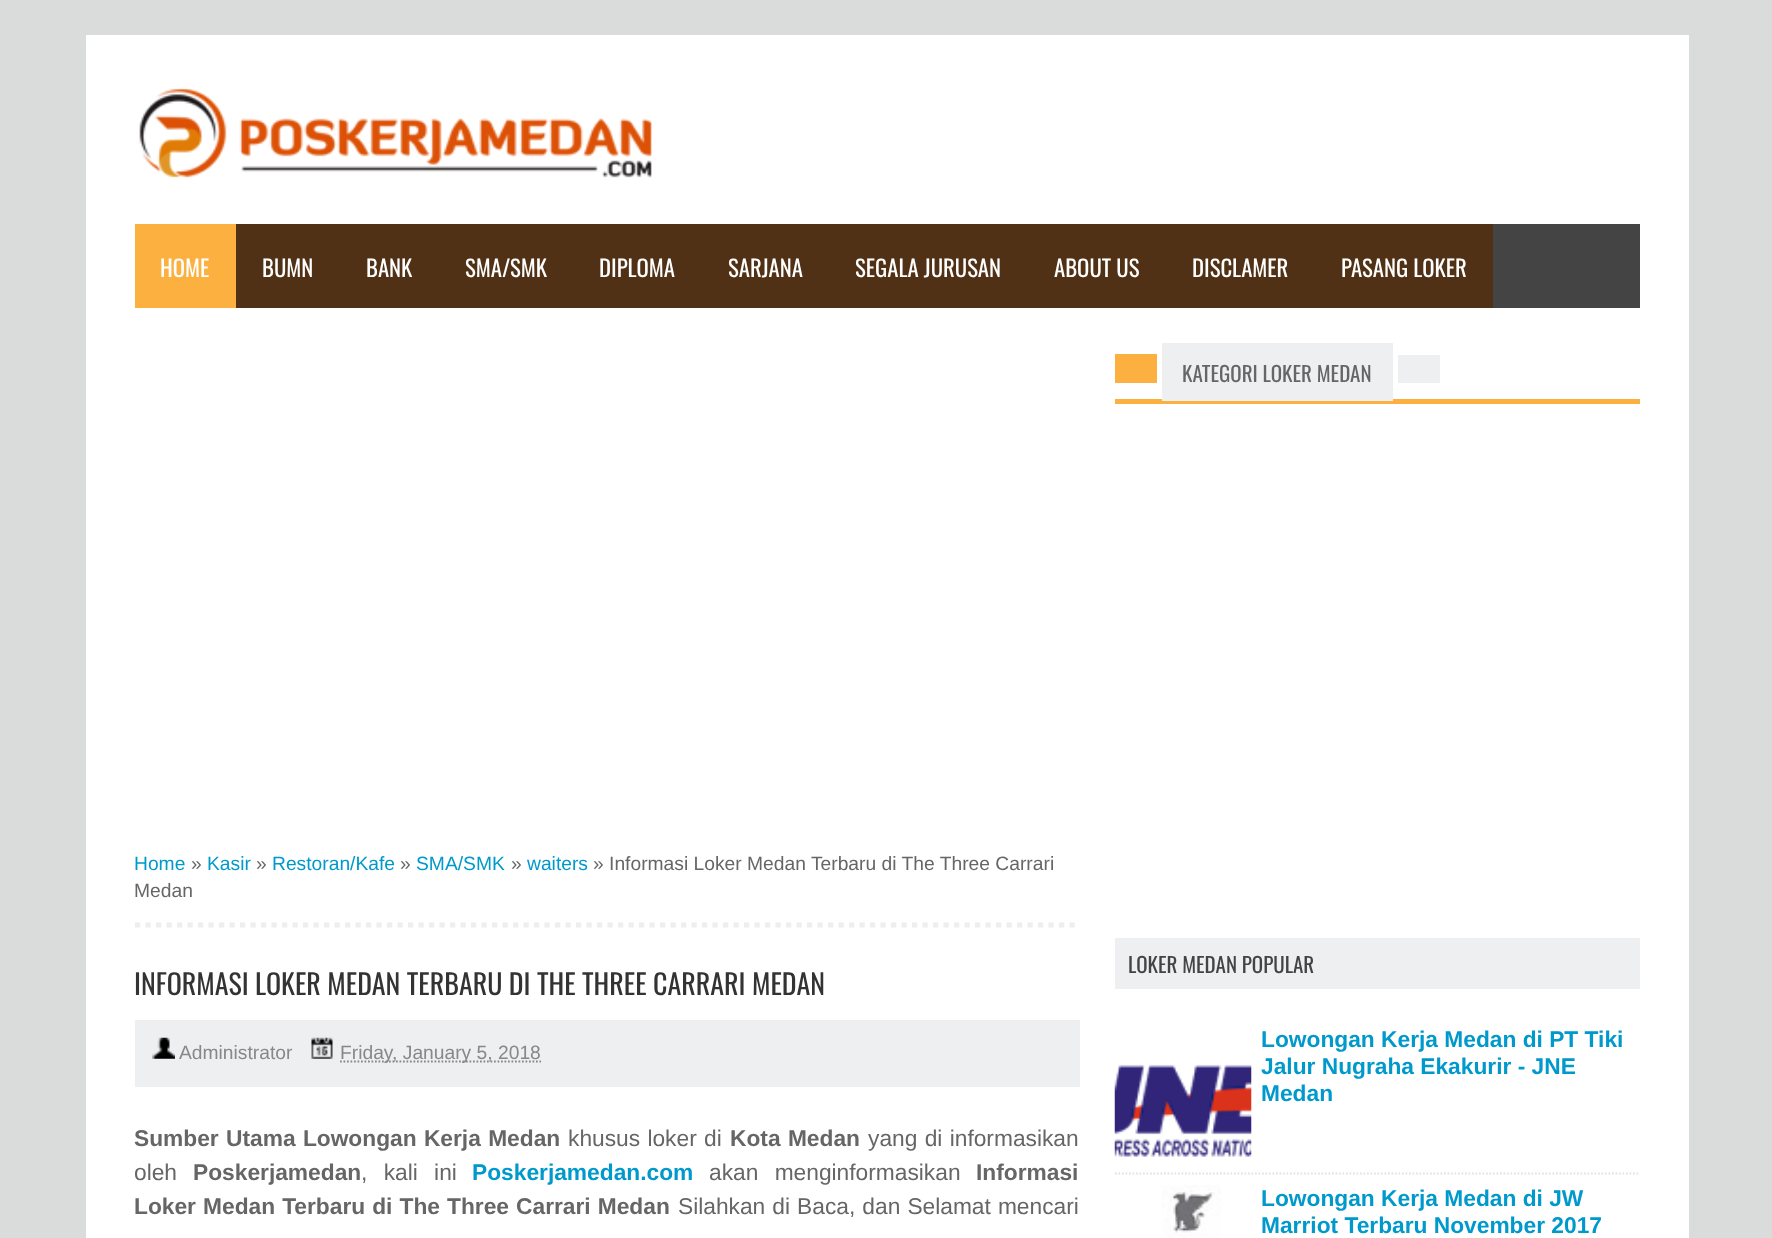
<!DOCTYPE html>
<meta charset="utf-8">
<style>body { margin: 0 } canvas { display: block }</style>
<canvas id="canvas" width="1772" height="1238"></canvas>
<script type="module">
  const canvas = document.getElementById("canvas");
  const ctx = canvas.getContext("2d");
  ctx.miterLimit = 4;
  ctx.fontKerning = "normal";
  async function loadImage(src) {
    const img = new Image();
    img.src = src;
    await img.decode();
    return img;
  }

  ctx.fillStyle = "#dadbdb";
  ctx.fillRect(0, 0, 1772, 1238);
  ctx.fillStyle = "#ffffff";
  ctx.fillRect(86, 35, 1603, 1203);
  ctx.drawImage(await loadImage("img1.png"), 139, 88, 513, 90);
  ctx.fillStyle = "#444444";
  ctx.fillRect(1493, 224, 147, 84);
  ctx.fillStyle = "#503115";
  ctx.fillRect(236, 224, 1257, 84);
  ctx.fillStyle = "#fbb040";
  ctx.fillRect(135, 224, 101, 84);
  ctx.font = "22.75px Oswald";
  ctx.fillStyle = "#ffffff";
  ctx.fillText("HOME", 160, 277);
  ctx.fillText("BUMN", 262, 277);
  ctx.fillText("BANK", 366, 277);
  ctx.fillText("SMA/SMK", 465, 277);
  ctx.fillText("DIPLOMA", 599, 277);
  ctx.fillText("SARJANA", 728, 277);
  ctx.fillText("SEGALA JURUSAN", 855, 277);
  ctx.fillText("ABOUT US", 1054, 277);
  ctx.fillText("DISCLAMER", 1192, 277);
  ctx.fillText("PASANG LOKER", 1341, 277);
  ctx.beginPath();
  ctx.moveTo(135, 925);
  ctx.lineTo(1080, 925);
  ctx.strokeStyle = "#eeeeee";
  ctx.lineWidth = 5.2;
  ctx.setLineDash([5.25, 5.25]);
  ctx.stroke();
  ctx.font = "19.25px Liberation Sans";
  ctx.fillStyle = "#0099cc";
  ctx.fillText("Home", 134, 870);
  ctx.fillStyle = "#666666";
  ctx.fillText("»", 191, 870);
  ctx.fillStyle = "#0099cc";
  ctx.fillText("Kasir", 207, 870);
  ctx.fillStyle = "#666666";
  ctx.fillText("»", 256, 870);
  ctx.fillStyle = "#0099cc";
  ctx.fillText("Restoran/Kafe", 272, 870);
  ctx.fillStyle = "#666666";
  ctx.fillText("»", 400, 870);
  ctx.fillStyle = "#0099cc";
  ctx.fillText("SMA/SMK", 416, 870);
  ctx.fillStyle = "#666666";
  ctx.fillText("»", 511, 870);
  ctx.fillStyle = "#0099cc";
  ctx.fillText("waiters", 527, 870);
  ctx.fillStyle = "#666666";
  ctx.fillText("» Informasi Loker Medan Terbaru di The Three Carrari", 593, 870);
  ctx.fillText("Medan", 134, 897);
  ctx.font = "28px Oswald";
  ctx.fillStyle = "#333333";
  ctx.fillText("INFORMASI LOKER MEDAN TERBARU DI THE THREE CARRARI MEDAN", 134, 995);
  ctx.fillStyle = "#edeff1";
  ctx.fillRect(135, 1020, 945, 67);
  ctx.drawImage(await loadImage("img2.png"), 152, 1037, 23, 22);
  ctx.font = "19.25px Liberation Sans";
  ctx.fillStyle = "#888888";
  ctx.fillText("Administrator", 179, 1059);
  ctx.drawImage(await loadImage("img3.png"), 311, 1037, 22, 22);
  ctx.beginPath();
  ctx.moveTo(340, 1061.5);
  ctx.lineTo(541, 1061.5);
  ctx.strokeStyle = "#888888";
  ctx.lineWidth = 1.8;
  ctx.setLineDash([1.75, 1.75]);
  ctx.stroke();
  ctx.fillText("Friday, January 5, 2018", 340, 1059);
  ctx.wordSpacing = "1px";
  ctx.font = "bold 22.75px Liberation Sans";
  ctx.fillStyle = "#666666";
  ctx.fillText("Sumber Utama Lowongan Kerja Medan", 134, 1146);
  ctx.font = "22.75px Liberation Sans";
  ctx.fillText("khusus loker di", 568, 1146);
  ctx.font = "bold 22.75px Liberation Sans";
  ctx.fillText("Kota Medan", 730, 1146);
  ctx.font = "22.75px Liberation Sans";
  ctx.fillText("yang di informasikan", 868, 1146);
  ctx.save();
  ctx.beginPath();
  ctx.rect(135, 308, 1505, 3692);
  ctx.clip();
  ctx.wordSpacing = "0px";
  ctx.fillText("oleh", 134, 1180);
  ctx.restore();
  ctx.wordSpacing = "0px";
  ctx.font = "bold 22.75px Liberation Sans";
  ctx.fillText("Poskerjamedan", 193, 1180);
  ctx.wordSpacing = "10px";
  ctx.font = "22.75px Liberation Sans";
  ctx.fillText(", kali ini", 361, 1180);
  ctx.wordSpacing = "0px";
  ctx.font = "bold 22.75px Liberation Sans";
  ctx.fillStyle = "#0099cc";
  ctx.fillText("Poskerjamedan.com", 472, 1180);
  ctx.wordSpacing = "10px";
  ctx.font = "22.75px Liberation Sans";
  ctx.fillStyle = "#666666";
  ctx.fillText("akan menginformasikan", 709, 1180);
  ctx.wordSpacing = "0px";
  ctx.font = "bold 22.75px Liberation Sans";
  ctx.fillText("Informasi", 976, 1180);
  ctx.wordSpacing = "0.75px";
  ctx.fillText("Loker Medan Terbaru di The Three Carrari Medan", 134, 1214);
  ctx.font = "22.75px Liberation Sans";
  ctx.fillText("Silahkan di Baca, dan Selamat mencari", 678, 1214);
  ctx.fillStyle = "#fbb040";
  ctx.fillRect(1115, 399, 525, 5);
  ctx.fillRect(1115, 354, 42, 29);
  ctx.fillStyle = "#edeff1";
  ctx.fillRect(1162, 343, 231, 58);
  ctx.wordSpacing = "0px";
  ctx.font = "21px Oswald";
  ctx.fillStyle = "#666666";
  ctx.fillText("KATEGORI LOKER MEDAN", 1182, 382);
  ctx.fillStyle = "#edeff1";
  ctx.fillRect(1398, 355, 42, 28);
  ctx.fillRect(1115, 938, 525, 51);
  ctx.fillStyle = "#444444";
  ctx.fillText("LOKER MEDAN POPULAR", 1128, 973);
  ctx.beginPath();
  ctx.moveTo(1115, 1173.5);
  ctx.lineTo(1640, 1173.5);
  ctx.strokeStyle = "#e2e2e2";
  ctx.stroke();
  ctx.drawImage(await loadImage("img4.png"), 1114, 1064, 138, 93);
  ctx.font = "bold 22.75px Liberation Sans";
  ctx.fillStyle = "#0099cc";
  ctx.fillText("Lowongan Kerja Medan di PT Tiki", 1261, 1047);
  ctx.fillText("Jalur Nugraha Ekakurir - JNE", 1261, 1074);
  ctx.fillText("Medan", 1261, 1101);
  ctx.drawImage(await loadImage("img5.png"), 1162, 1185, 59, 53);
  ctx.fillText("Lowongan Kerja Medan di JW", 1261, 1206);
  ctx.fillText("Marriot Terbaru November 2017", 1261, 1233);
</script>
